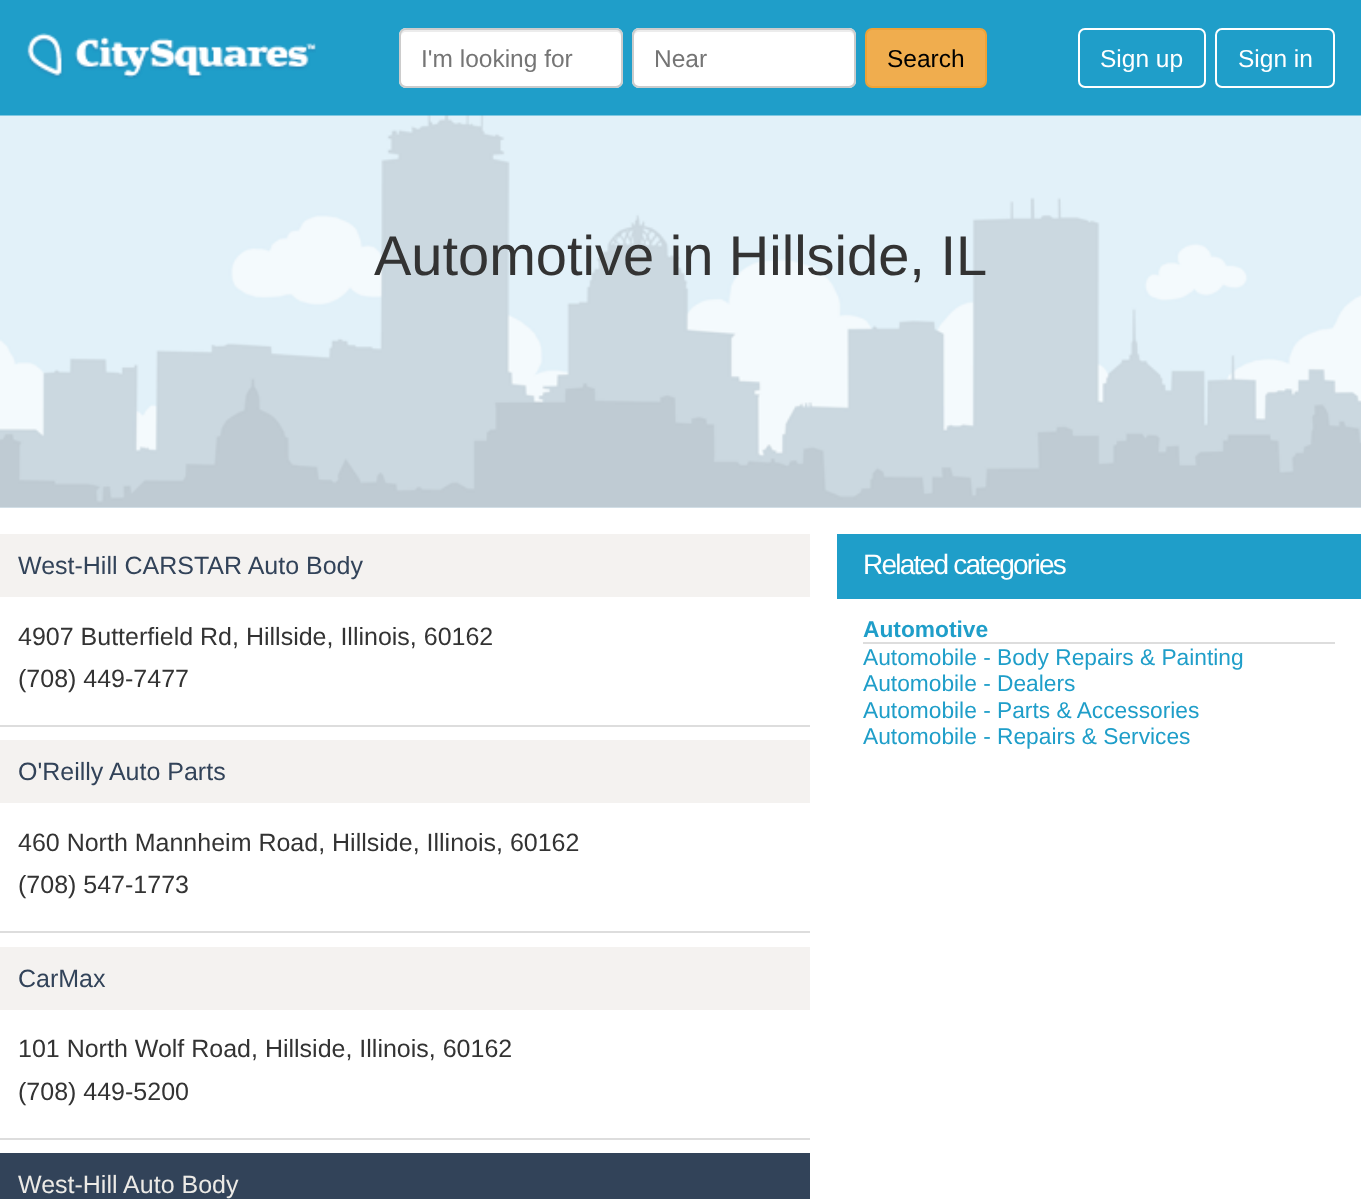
<!DOCTYPE html>
<meta charset="utf-8">
<style>body { margin: 0 } canvas { display: block }</style>
<canvas id="canvas" width="1361" height="1199"></canvas>
<script type="module">
  const canvas = document.getElementById("canvas");
  const ctx = canvas.getContext("2d");
  ctx.miterLimit = 4;
  ctx.fontKerning = "normal";
  async function loadImage(src) {
    const img = new Image();
    img.src = src;
    await img.decode();
    return img;
  }

  ctx.fillStyle = "#ffffff";
  ctx.fillRect(0, 0, 1361, 1199);
  ctx.fillStyle = "#1f9ec9";
  ctx.fillRect(0, 0, 1361, 116);
  ctx.drawImage(await loadImage("img1.png"), 27, 33, 289, 46);
  ctx.fillStyle = "#ffffff";
  ctx.beginPath();
  ctx.roundRect(399, 28, 224, 60, 7);
  ctx.fill();
  ctx.fillStyle = "#ececec";
  ctx.beginPath();
  ctx.moveTo(406, 32);
  ctx.lineTo(616, 32);
  ctx.bezierCurveTo(619, 32, 621, 34, 621, 37);
  ctx.lineTo(621, 35);
  ctx.bezierCurveTo(621, 32, 619, 30, 616, 30);
  ctx.lineTo(406, 30);
  ctx.bezierCurveTo(403, 30, 401, 32, 401, 35);
  ctx.lineTo(401, 37);
  ctx.bezierCurveTo(401, 34, 403, 32, 406, 32);
  ctx.closePath();
  ctx.fill();
  ctx.beginPath();
  ctx.roundRect(400, 29, 222, 58, 6);
  ctx.strokeStyle = "#cccccc";
  ctx.lineWidth = 2;
  ctx.stroke();
  ctx.font = "24.5px Liberation Sans";
  ctx.fillStyle = "#757575";
  ctx.fillText("I'm looking for", 421, 67);
  ctx.fillStyle = "#ffffff";
  ctx.beginPath();
  ctx.roundRect(632, 28, 224, 60, 7);
  ctx.fill();
  ctx.fillStyle = "#ececec";
  ctx.beginPath();
  ctx.moveTo(639, 32);
  ctx.lineTo(849, 32);
  ctx.bezierCurveTo(852, 32, 854, 34, 854, 37);
  ctx.lineTo(854, 35);
  ctx.bezierCurveTo(854, 32, 852, 30, 849, 30);
  ctx.lineTo(639, 30);
  ctx.bezierCurveTo(636, 30, 634, 32, 634, 35);
  ctx.lineTo(634, 37);
  ctx.bezierCurveTo(634, 34, 636, 32, 639, 32);
  ctx.closePath();
  ctx.fill();
  ctx.beginPath();
  ctx.roundRect(633, 29, 222, 58, 6);
  ctx.stroke();
  ctx.fillStyle = "#757575";
  ctx.fillText("Near", 654, 67);
  ctx.fillStyle = "#f0ad4e";
  ctx.beginPath();
  ctx.roundRect(866, 29, 120, 58, 6);
  ctx.fill();
  ctx.strokeStyle = "#eea236";
  ctx.stroke();
  ctx.fillStyle = "#000000";
  ctx.fillText("Search", 887, 67);
  ctx.beginPath();
  ctx.roundRect(1079, 29, 126, 58, 6);
  ctx.strokeStyle = "#ffffff";
  ctx.stroke();
  ctx.fillStyle = "#ffffff";
  ctx.fillText("Sign up", 1100, 67);
  ctx.beginPath();
  ctx.roundRect(1216, 29, 118, 58, 6);
  ctx.stroke();
  ctx.fillText("Sign in", 1238, 67);
  ctx.fillStyle = "#e2f1f9";
  ctx.fillRect(0, 507, 1361, 1);
  ctx.drawImage(await loadImage("img2.png"), 0, 115, 1361, 393);
  ctx.font = "56px Liberation Sans";
  ctx.fillStyle = "#333333";
  ctx.fillText("Automotive in Hillside, IL", 374, 275);
  ctx.fillStyle = "#f4f2f0";
  ctx.fillRect(0, 534, 810, 63);
  ctx.font = "25px Liberation Sans";
  ctx.fillStyle = "#324359";
  ctx.fillText("West-Hill CARSTAR Auto Body", 18, 574);
  ctx.fillStyle = "#333333";
  ctx.fillText("4907 Butterfield Rd, Hillside, Illinois, 60162", 18, 645);
  ctx.fillText("(708) 449-7477", 18, 687);
  ctx.fillStyle = "#dddddd";
  ctx.fillRect(0, 725, 810, 2);
  ctx.fillStyle = "#f4f2f0";
  ctx.fillRect(0, 740, 810, 63);
  ctx.fillStyle = "#324359";
  ctx.fillText("O'Reilly Auto Parts", 18, 780);
  ctx.fillStyle = "#333333";
  ctx.fillText("460 North Mannheim Road, Hillside, Illinois, 60162", 18, 851);
  ctx.fillText("(708) 547-1773", 18, 893);
  ctx.fillStyle = "#dddddd";
  ctx.fillRect(0, 931, 810, 2);
  ctx.fillStyle = "#f4f2f0";
  ctx.fillRect(0, 947, 810, 63);
  ctx.fillStyle = "#324359";
  ctx.fillText("CarMax", 18, 987);
  ctx.fillStyle = "#333333";
  ctx.fillText("101 North Wolf Road, Hillside, Illinois, 60162", 18, 1057);
  ctx.fillText("(708) 449-5200", 18, 1100);
  ctx.fillStyle = "#dddddd";
  ctx.fillRect(0, 1138, 810, 2);
  ctx.fillStyle = "#324359";
  ctx.fillRect(0, 1153, 810, 46);
  ctx.fillStyle = "#eceae6";
  ctx.fillText("West-Hill Auto Body", 18, 1193);
  ctx.fillStyle = "#1f9ec9";
  ctx.fillRect(837, 534, 524, 65);
  ctx.letterSpacing = "-1.75px";
  ctx.font = "28px Liberation Sans";
  ctx.fillStyle = "#ffffff";
  ctx.fillText("Related categories", 863, 574);
  ctx.letterSpacing = "0px";
  ctx.font = "bold 22.75px Liberation Sans";
  ctx.fillStyle = "#1f9ec9";
  ctx.fillText("Automotive", 863, 637);
  ctx.fillStyle = "#dddddd";
  ctx.fillRect(863, 642, 472, 2);
  ctx.font = "22.75px Liberation Sans";
  ctx.fillStyle = "#1f9ec9";
  ctx.fillText("Automobile - Body Repairs & Painting", 863, 665);
  ctx.fillText("Automobile - Dealers", 863, 691);
  ctx.fillText("Automobile - Parts & Accessories", 863, 718);
  ctx.fillText("Automobile - Repairs & Services", 863, 744);
</script>
